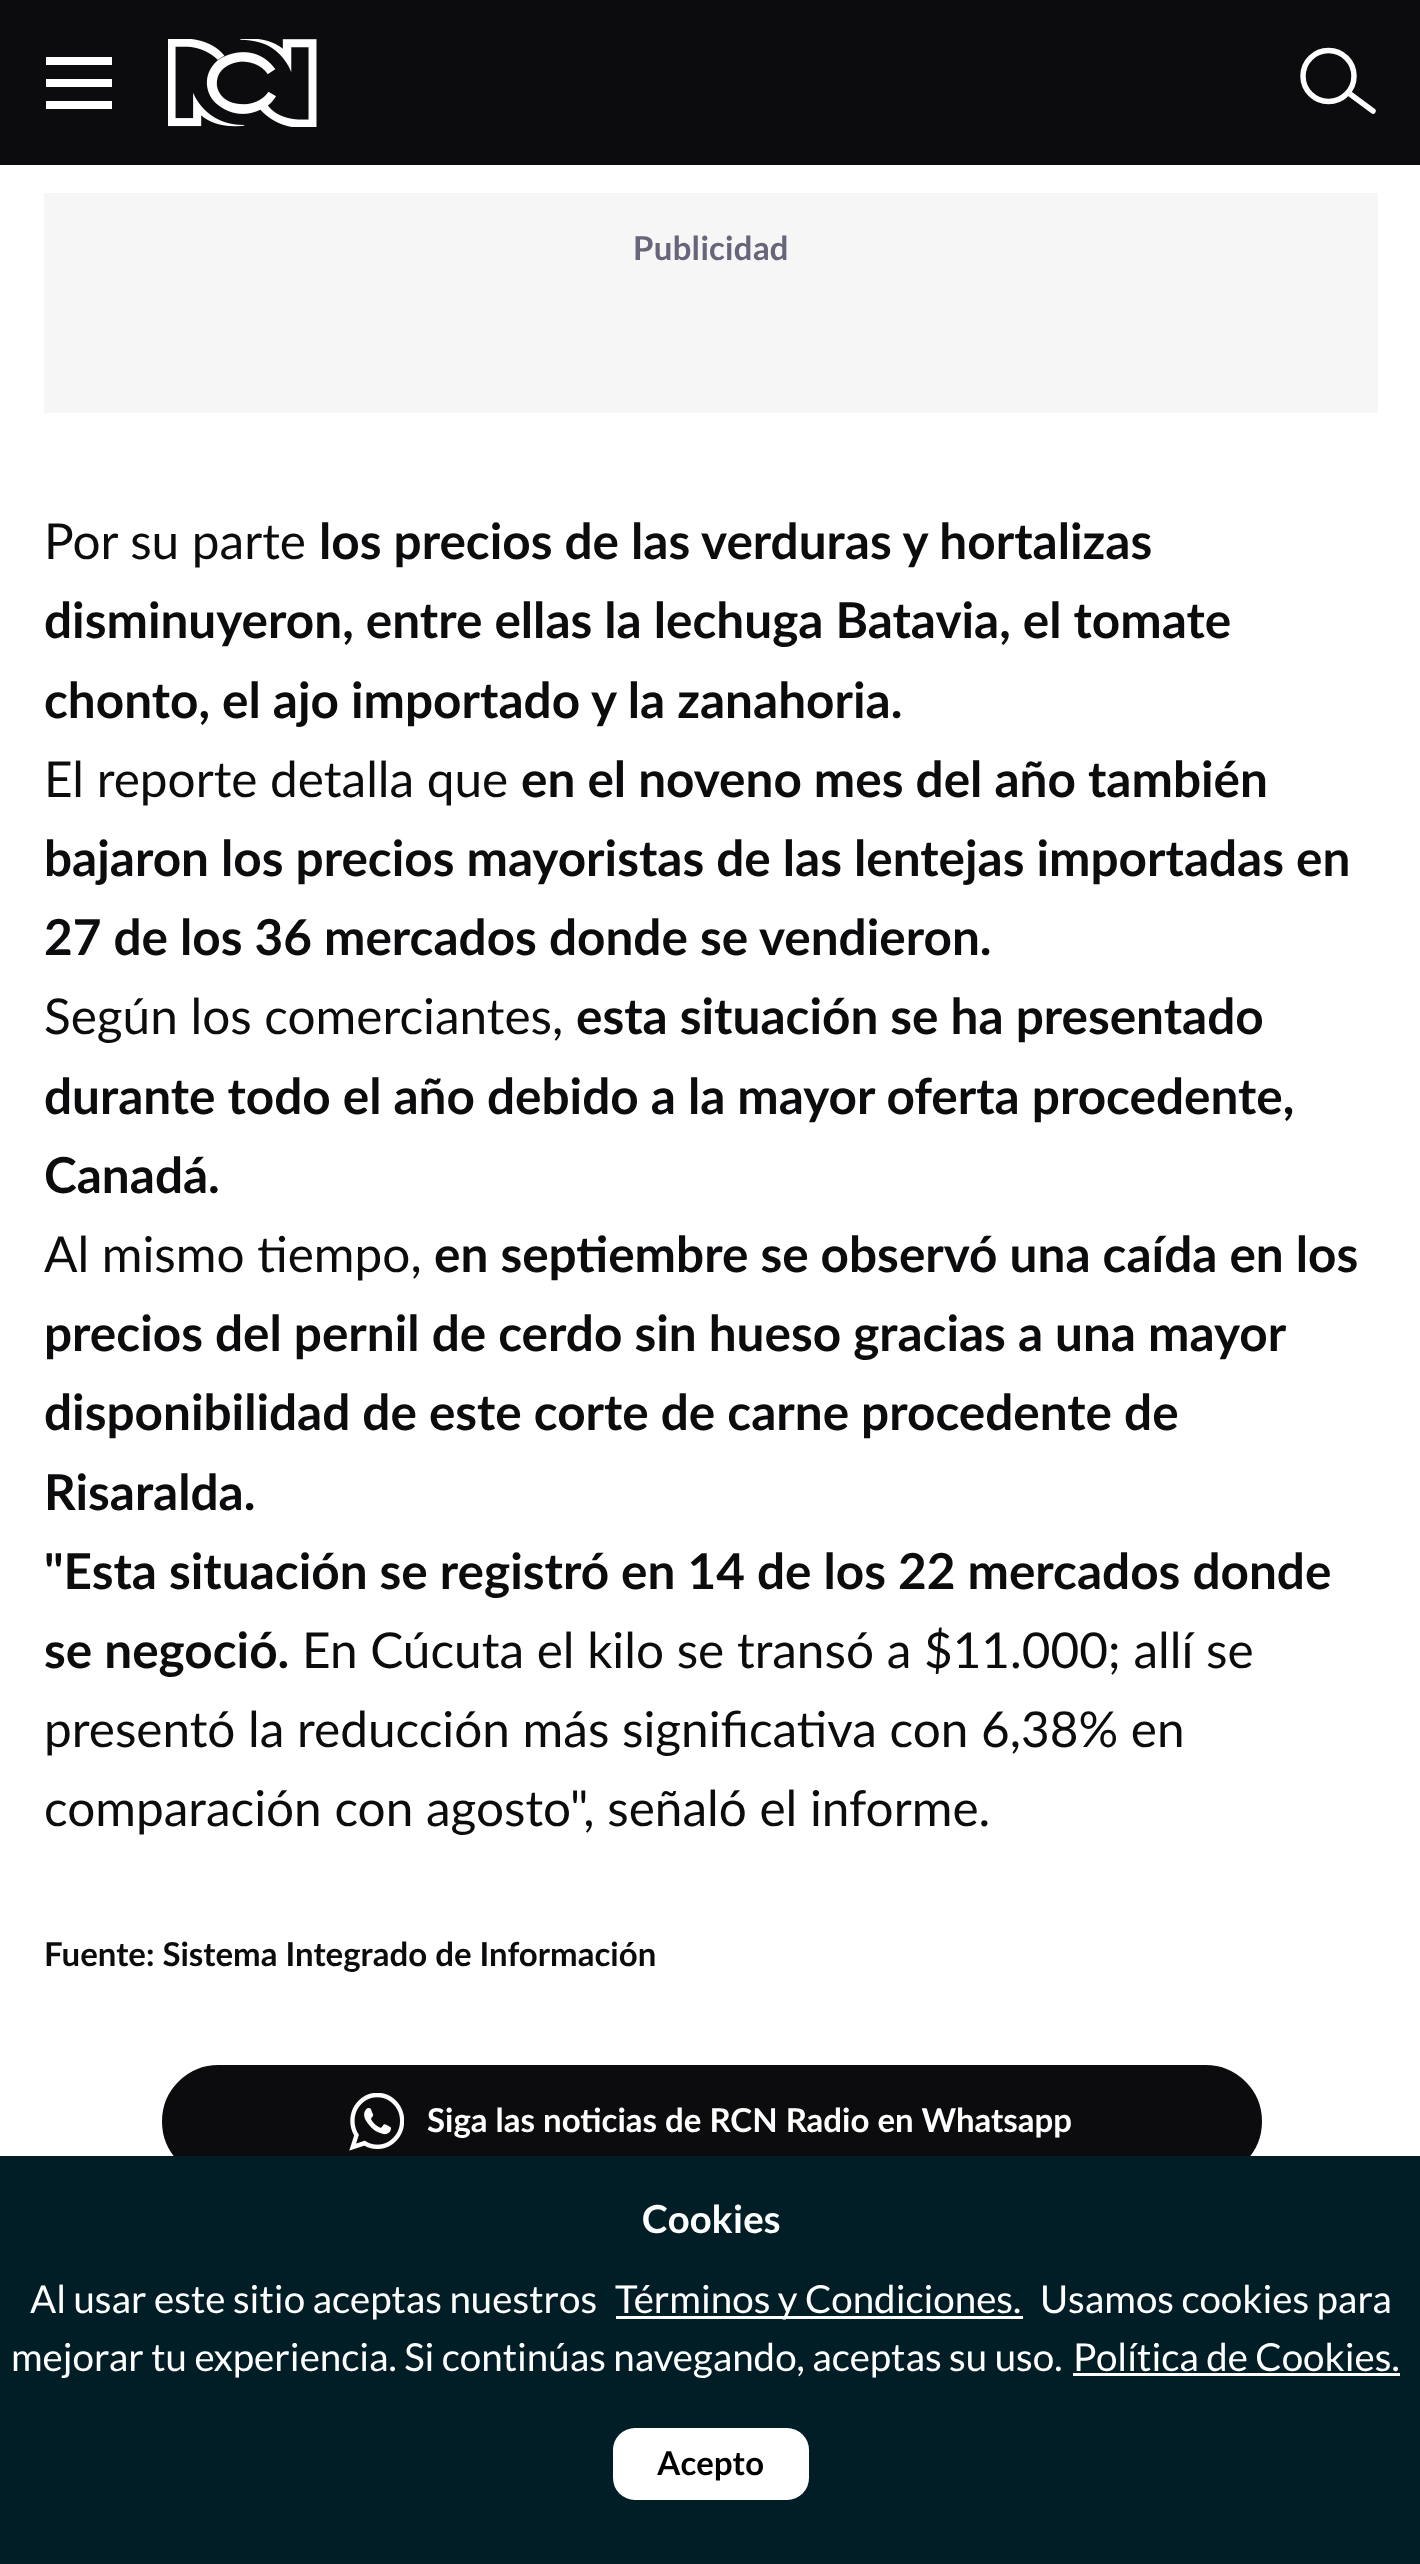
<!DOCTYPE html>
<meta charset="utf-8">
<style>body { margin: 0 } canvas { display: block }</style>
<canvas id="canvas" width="1420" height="2564"></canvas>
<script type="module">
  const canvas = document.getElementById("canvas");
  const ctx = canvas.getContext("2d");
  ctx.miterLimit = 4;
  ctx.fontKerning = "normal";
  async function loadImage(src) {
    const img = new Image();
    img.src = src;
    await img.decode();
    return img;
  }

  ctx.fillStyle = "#ffffff";
  ctx.fillRect(0, 0, 1420, 2564);
  ctx.fillStyle = "#0c0c0e";
  ctx.fillRect(0, 0, 1420, 165);
  ctx.fillStyle = "#ffffff";
  ctx.beginPath();
  ctx.moveTo(46, 57);
  ctx.lineTo(112, 57);
  ctx.lineTo(112, 65);
  ctx.lineTo(46, 65);
  ctx.closePath();
  ctx.moveTo(46, 79);
  ctx.lineTo(112, 79);
  ctx.lineTo(112, 87);
  ctx.lineTo(46, 87);
  ctx.closePath();
  ctx.moveTo(46, 101);
  ctx.lineTo(112, 101);
  ctx.lineTo(112, 109);
  ctx.lineTo(46, 109);
  ctx.closePath();
  ctx.fill();
  ctx.drawImage(await loadImage("img1.png"), 168, 39, 149, 88);
  ctx.beginPath();
  ctx.arc(1328.5, 76, 25.5, 0, Math.PI * 2);
  ctx.strokeStyle = "#ffffff";
  ctx.lineWidth = 5.5;
  ctx.stroke();
  ctx.beginPath();
  ctx.moveTo(1350, 94);
  ctx.lineTo(1373, 111);
  ctx.lineCap = "round";
  ctx.stroke();
  ctx.fillStyle = "#f6f6f6";
  ctx.fillRect(44, 193, 1334, 220);
  ctx.font = "bold 33px 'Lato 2'";
  ctx.fillStyle = "#696479";
  ctx.fillText("Publicidad", 633, 260);
  ctx.font = "49.5px Lato";
  ctx.fillStyle = "#0c0c0e";
  ctx.fillText("Por su parte", 44, 559);
  ctx.font = "bold 49.5px Lato";
  ctx.fillText("los precios de las verduras y hortalizas", 319, 559);
  ctx.fillText("disminuyeron, entre ellas la lechuga Batavia, el tomate", 44, 638);
  ctx.fillText("chonto, el ajo importado y la zanahoria.", 44, 718);
  ctx.font = "49.5px Lato";
  ctx.fillText("El reporte detalla que", 44, 797);
  ctx.font = "bold 49.5px Lato";
  ctx.fillText("en el noveno mes del año también", 521, 797);
  ctx.fillText("bajaron los precios mayoristas de las lentejas importadas en", 44, 876);
  ctx.fillText("27 de los 36 mercados donde se vendieron.", 44, 955);
  ctx.font = "49.5px Lato";
  ctx.fillText("Según los comerciantes,", 44, 1034);
  ctx.font = "bold 49.5px Lato";
  ctx.fillText("esta situación se ha presentado", 576, 1034);
  ctx.fillText("durante todo el año debido a la mayor oferta procedente,", 44, 1114);
  ctx.fillText("Canadá.", 44, 1193);
  ctx.font = "49.5px Lato";
  ctx.fillText("Al mismo tiempo,", 44, 1272);
  ctx.font = "bold 49.5px Lato";
  ctx.fillText("en septiembre se observó una caída en los", 434, 1272);
  ctx.fillText("precios del pernil de cerdo sin hueso gracias a una mayor", 44, 1351);
  ctx.fillText("disponibilidad de este corte de carne procedente de", 44, 1430);
  ctx.fillText("Risaralda.", 44, 1510);
  ctx.fillText("\"Esta situación se registró en 14 de los 22 mercados donde", 44, 1589);
  ctx.fillText("se negoció.", 44, 1668);
  ctx.font = "49.5px Lato";
  ctx.fillText("En Cúcuta el kilo se transó a $11.000; allí se", 302, 1668);
  ctx.fillText("presentó la reducción más significativa con 6,38% en", 44, 1747);
  ctx.fillText("comparación con agosto\", señaló el informe.", 44, 1826);
  ctx.font = "bold 33px Lato";
  ctx.fillText("Fuente: Sistema Integrado de Información", 44, 1966);
  ctx.beginPath();
  ctx.roundRect(163.5, 2066.5, 1097, 110, 55);
  ctx.fill();
  ctx.strokeStyle = "#0c0c0e";
  ctx.lineWidth = 3;
  ctx.stroke();
  ctx.drawImage(await loadImage("img2.png"), 349, 2093, 55, 58);
  ctx.fillStyle = "#ffffff";
  ctx.fillText("Siga las noticias de RCN Radio en Whatsapp", 427, 2132);
  ctx.fillStyle = "#011e27";
  ctx.fillRect(0, 2156, 1420, 408);
  ctx.font = "bold 38.5px 'Lato 2'";
  ctx.fillStyle = "#ffffff";
  ctx.fillText("Cookies", 642, 2233);
  ctx.font = "38.5px 'Lato 2'";
  ctx.fillText("Al usar este sitio aceptas nuestros", 30, 2313);
  ctx.fillRect(616, 2316, 407, 3);
  ctx.fillText("Términos y Condiciones.", 615, 2313);
  ctx.fillText("Usamos cookies para", 1040, 2313);
  ctx.fillText("mejorar tu experiencia. Si continúas navegando, aceptas su uso.", 11, 2371);
  ctx.fillText("Política de Cookies.", 1073, 2371);
  ctx.fillRect(1073, 2373, 327, 3);
  ctx.beginPath();
  ctx.roundRect(613, 2428, 196, 72, 22);
  ctx.fill();
  ctx.font = "bold 33px 'Lato 2'";
  ctx.fillStyle = "#000000";
  ctx.fillText("Acepto", 657, 2475);
</script>
